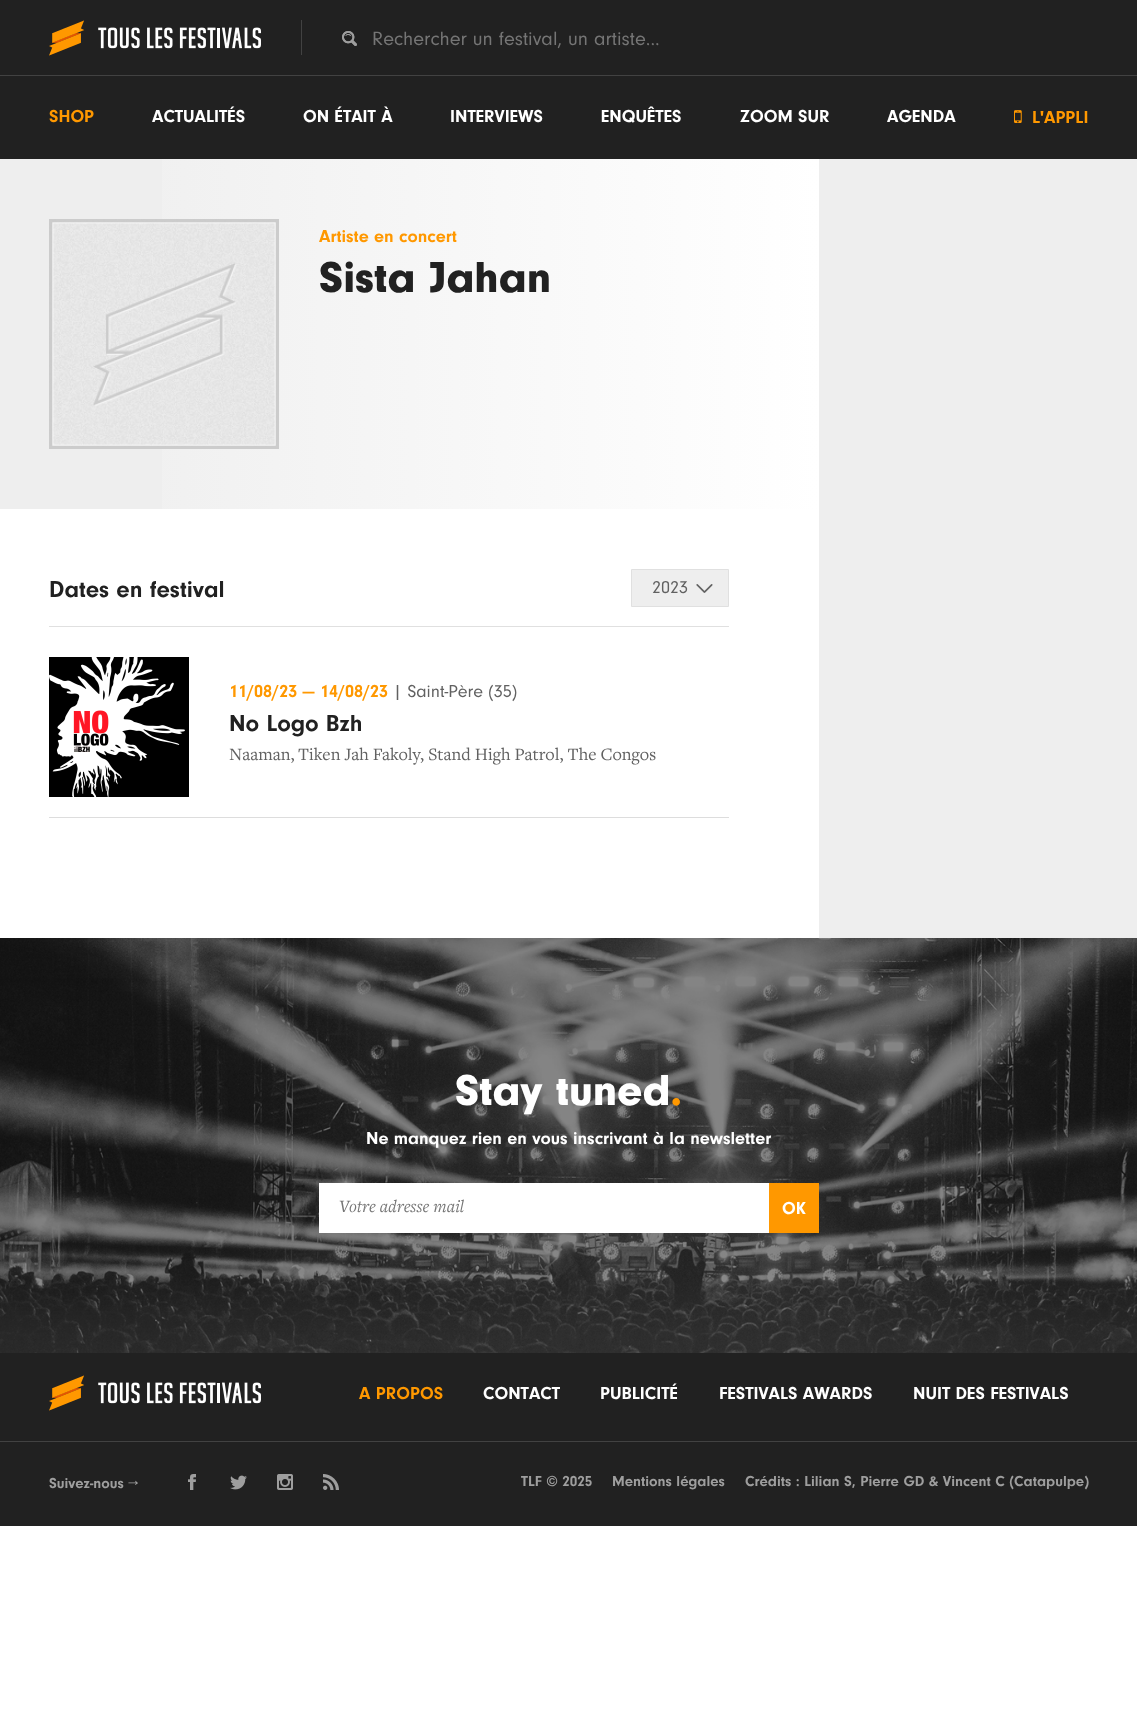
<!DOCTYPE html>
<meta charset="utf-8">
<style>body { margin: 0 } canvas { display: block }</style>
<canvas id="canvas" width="1137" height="1713"></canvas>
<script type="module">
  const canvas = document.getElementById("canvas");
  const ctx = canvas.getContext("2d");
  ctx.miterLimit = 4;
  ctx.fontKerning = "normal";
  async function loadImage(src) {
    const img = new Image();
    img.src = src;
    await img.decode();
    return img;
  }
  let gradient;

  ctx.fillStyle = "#ffffff";
  ctx.fillRect(0, 0, 1137, 1713);
  ctx.fillStyle = "#212121";
  ctx.fillRect(0, 0, 1137, 159);
  ctx.fillStyle = "#424242";
  ctx.fillRect(301, 20, 1, 35);
  ctx.drawImage(await loadImage("img1.png"), 49, 20, 212, 36);
  ctx.drawImage(await loadImage("img2.png"), 342, 31, 15, 15);
  ctx.drawImage(await loadImage("img3.png"), 342, 31, 15, 15);
  ctx.font = "20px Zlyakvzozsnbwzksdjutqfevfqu";
  ctx.fillStyle = "#757575";
  ctx.fillText("Rechercher un festival, un artiste...", 372, 45);
  ctx.fillStyle = "#424242";
  ctx.fillRect(0, 75, 1137, 1);
  ctx.font = "bold 18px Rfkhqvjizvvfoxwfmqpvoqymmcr";
  ctx.fillStyle = "#ff9800";
  ctx.fillText("SHOP", 49, 122);
  ctx.fillStyle = "#ffffff";
  ctx.fillText("ACTUALITÉS", 152, 122);
  ctx.fillText("ON ÉTAIT À", 303, 122);
  ctx.fillText("INTERVIEWS", 450, 122);
  ctx.fillText("ENQUÊTES", 601, 122);
  ctx.fillText("ZOOM SUR", 740, 122);
  ctx.fillText("AGENDA", 887, 122);
  ctx.drawImage(await loadImage("img4.png"), 1014, 110, 8, 13);
  ctx.fillStyle = "#ff9800";
  ctx.fillText("L'APPLI", 1032, 123);
  ctx.fillStyle = "#eeeeee";
  ctx.fillRect(0, 159, 1137, 779);
  gradient = ctx.createLinearGradient(49, 334, 819, 334);
  gradient.addColorStop(0, "#eeeeee");
  gradient.addColorStop(1, "#ffffff");
  ctx.fillStyle = gradient;
  ctx.fillRect(162, 159, 657, 350);
  ctx.drawImage(await loadImage("img5.png"), 49, 219, 230, 230);
  ctx.fillStyle = "#ff9800";
  ctx.fillText("Artiste en concert", 319, 242);
  ctx.font = "45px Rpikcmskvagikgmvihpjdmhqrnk";
  ctx.fillStyle = "#212121";
  ctx.fillText("Sista Jahan", 319, 292);
  ctx.fillStyle = "#ffffff";
  ctx.fillRect(0, 509, 819, 429);
  ctx.fillStyle = "#e0e0e0";
  ctx.fillRect(49, 626, 680, 1);
  ctx.font = "bold 24px Rfkhqvjizvvfoxwfmqpvoqymmcr";
  ctx.fillStyle = "#212121";
  ctx.fillText("Dates en festival", 49, 597);
  ctx.fillStyle = "#eeeeee";
  ctx.beginPath();
  ctx.rect(631.5, 569.5, 97, 37);
  ctx.fill();
  ctx.strokeStyle = "#e0e0e0";
  ctx.stroke();
  ctx.drawImage(await loadImage("img6.png"), 696, 584, 17, 9);
  ctx.font = "18px Zlyakvzozsnbwzksdjutqfevfqu";
  ctx.fillStyle = "#616161";
  ctx.fillText("2023", 652, 593);
  ctx.fillStyle = "#dddddd";
  ctx.fillRect(49, 817, 680, 1);
  ctx.fillStyle = "#000000";
  ctx.fillRect(49, 657, 140, 140);
  ctx.drawImage(await loadImage("img7.png"), 49, 657, 136, 140);
  ctx.font = "bold 18px Rfkhqvjizvvfoxwfmqpvoqymmcr";
  ctx.fillStyle = "#ff9800";
  ctx.fillText("11/08/23 — 14/08/23", 229, 697);
  ctx.font = "18px Zlyakvzozsnbwzksdjutqfevfqu";
  ctx.fillStyle = "#616161";
  ctx.fillText("| Saint-Père (35)", 393, 697);
  ctx.font = "bold 24px Rfkhqvjizvvfoxwfmqpvoqymmcr";
  ctx.fillStyle = "#212121";
  ctx.fillText("No Logo Bzh", 229, 731);
  ctx.font = "18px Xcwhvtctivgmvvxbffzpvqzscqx";
  ctx.fillStyle = "#616161";
  ctx.fillText("Naaman,", 229, 760);
  ctx.fillText("Tiken Jah Fakoly", 298, 760);
  ctx.fillText(", Stand High Patrol, The Congos", 420, 760);
  ctx.fillStyle = "#212121";
  ctx.fillRect(0, 1353, 1137, 173);
  ctx.drawImage(await loadImage("img8.png"), 0, 938, 1137, 415);
  ctx.font = "45px Rpikcmskvagikgmvihpjdmhqrnk";
  ctx.fillStyle = "#ffffff";
  ctx.fillText("Stay tuned", 455, 1105);
  ctx.fillStyle = "#ff9800";
  ctx.fillText(".", 670, 1105);
  ctx.font = "bold 18px Rfkhqvjizvvfoxwfmqpvoqymmcr";
  ctx.fillStyle = "#ffffff";
  ctx.fillText("Ne manquez rien en vous inscrivant à la newsletter", 366, 1144);
  ctx.fillRect(319, 1183, 450, 50);
  ctx.font = "italic 18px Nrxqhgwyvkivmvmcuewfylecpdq";
  ctx.fillStyle = "#757575";
  ctx.fillText("Votre adresse mail", 339, 1212);
  ctx.fillStyle = "#ff9800";
  ctx.fillRect(769, 1183, 50, 50);
  ctx.font = "bold 18px Rfkhqvjizvvfoxwfmqpvoqymmcr";
  ctx.fillStyle = "#ffffff";
  ctx.fillText("OK", 782, 1214);
  ctx.drawImage(await loadImage("img1.png"), 49, 1375, 212, 36);
  ctx.fillStyle = "#ff9800";
  ctx.fillText("A PROPOS", 359, 1399);
  ctx.fillStyle = "#ffffff";
  ctx.fillText("CONTACT", 483, 1399);
  ctx.fillText("PUBLICITÉ", 600, 1399);
  ctx.fillText("FESTIVALS AWARDS", 719, 1399);
  ctx.fillText("NUIT DES FESTIVALS", 913, 1399);
  ctx.fillStyle = "#424242";
  ctx.fillRect(0, 1441, 1137, 1);
  ctx.font = "bold 15px Rfkhqvjizvvfoxwfmqpvoqymmcr";
  ctx.fillStyle = "#9e9e9e";
  ctx.fillText("Suivez-nous →", 49, 1488);
  ctx.drawImage(await loadImage("img9.png"), 188, 1474, 8, 16);
  ctx.drawImage(await loadImage("img10.png"), 230, 1475, 17, 15);
  ctx.drawImage(await loadImage("img11.png"), 277, 1474, 16, 16);
  ctx.drawImage(await loadImage("img12.png"), 323, 1474, 16, 16);
  ctx.fillText("TLF © 2025", 521, 1486);
  ctx.fillText("Mentions légales", 612, 1486);
  ctx.fillText("Crédits : Lilian S, Pierre GD & Vincent C (Catapulpe)", 745, 1486);
</script>
